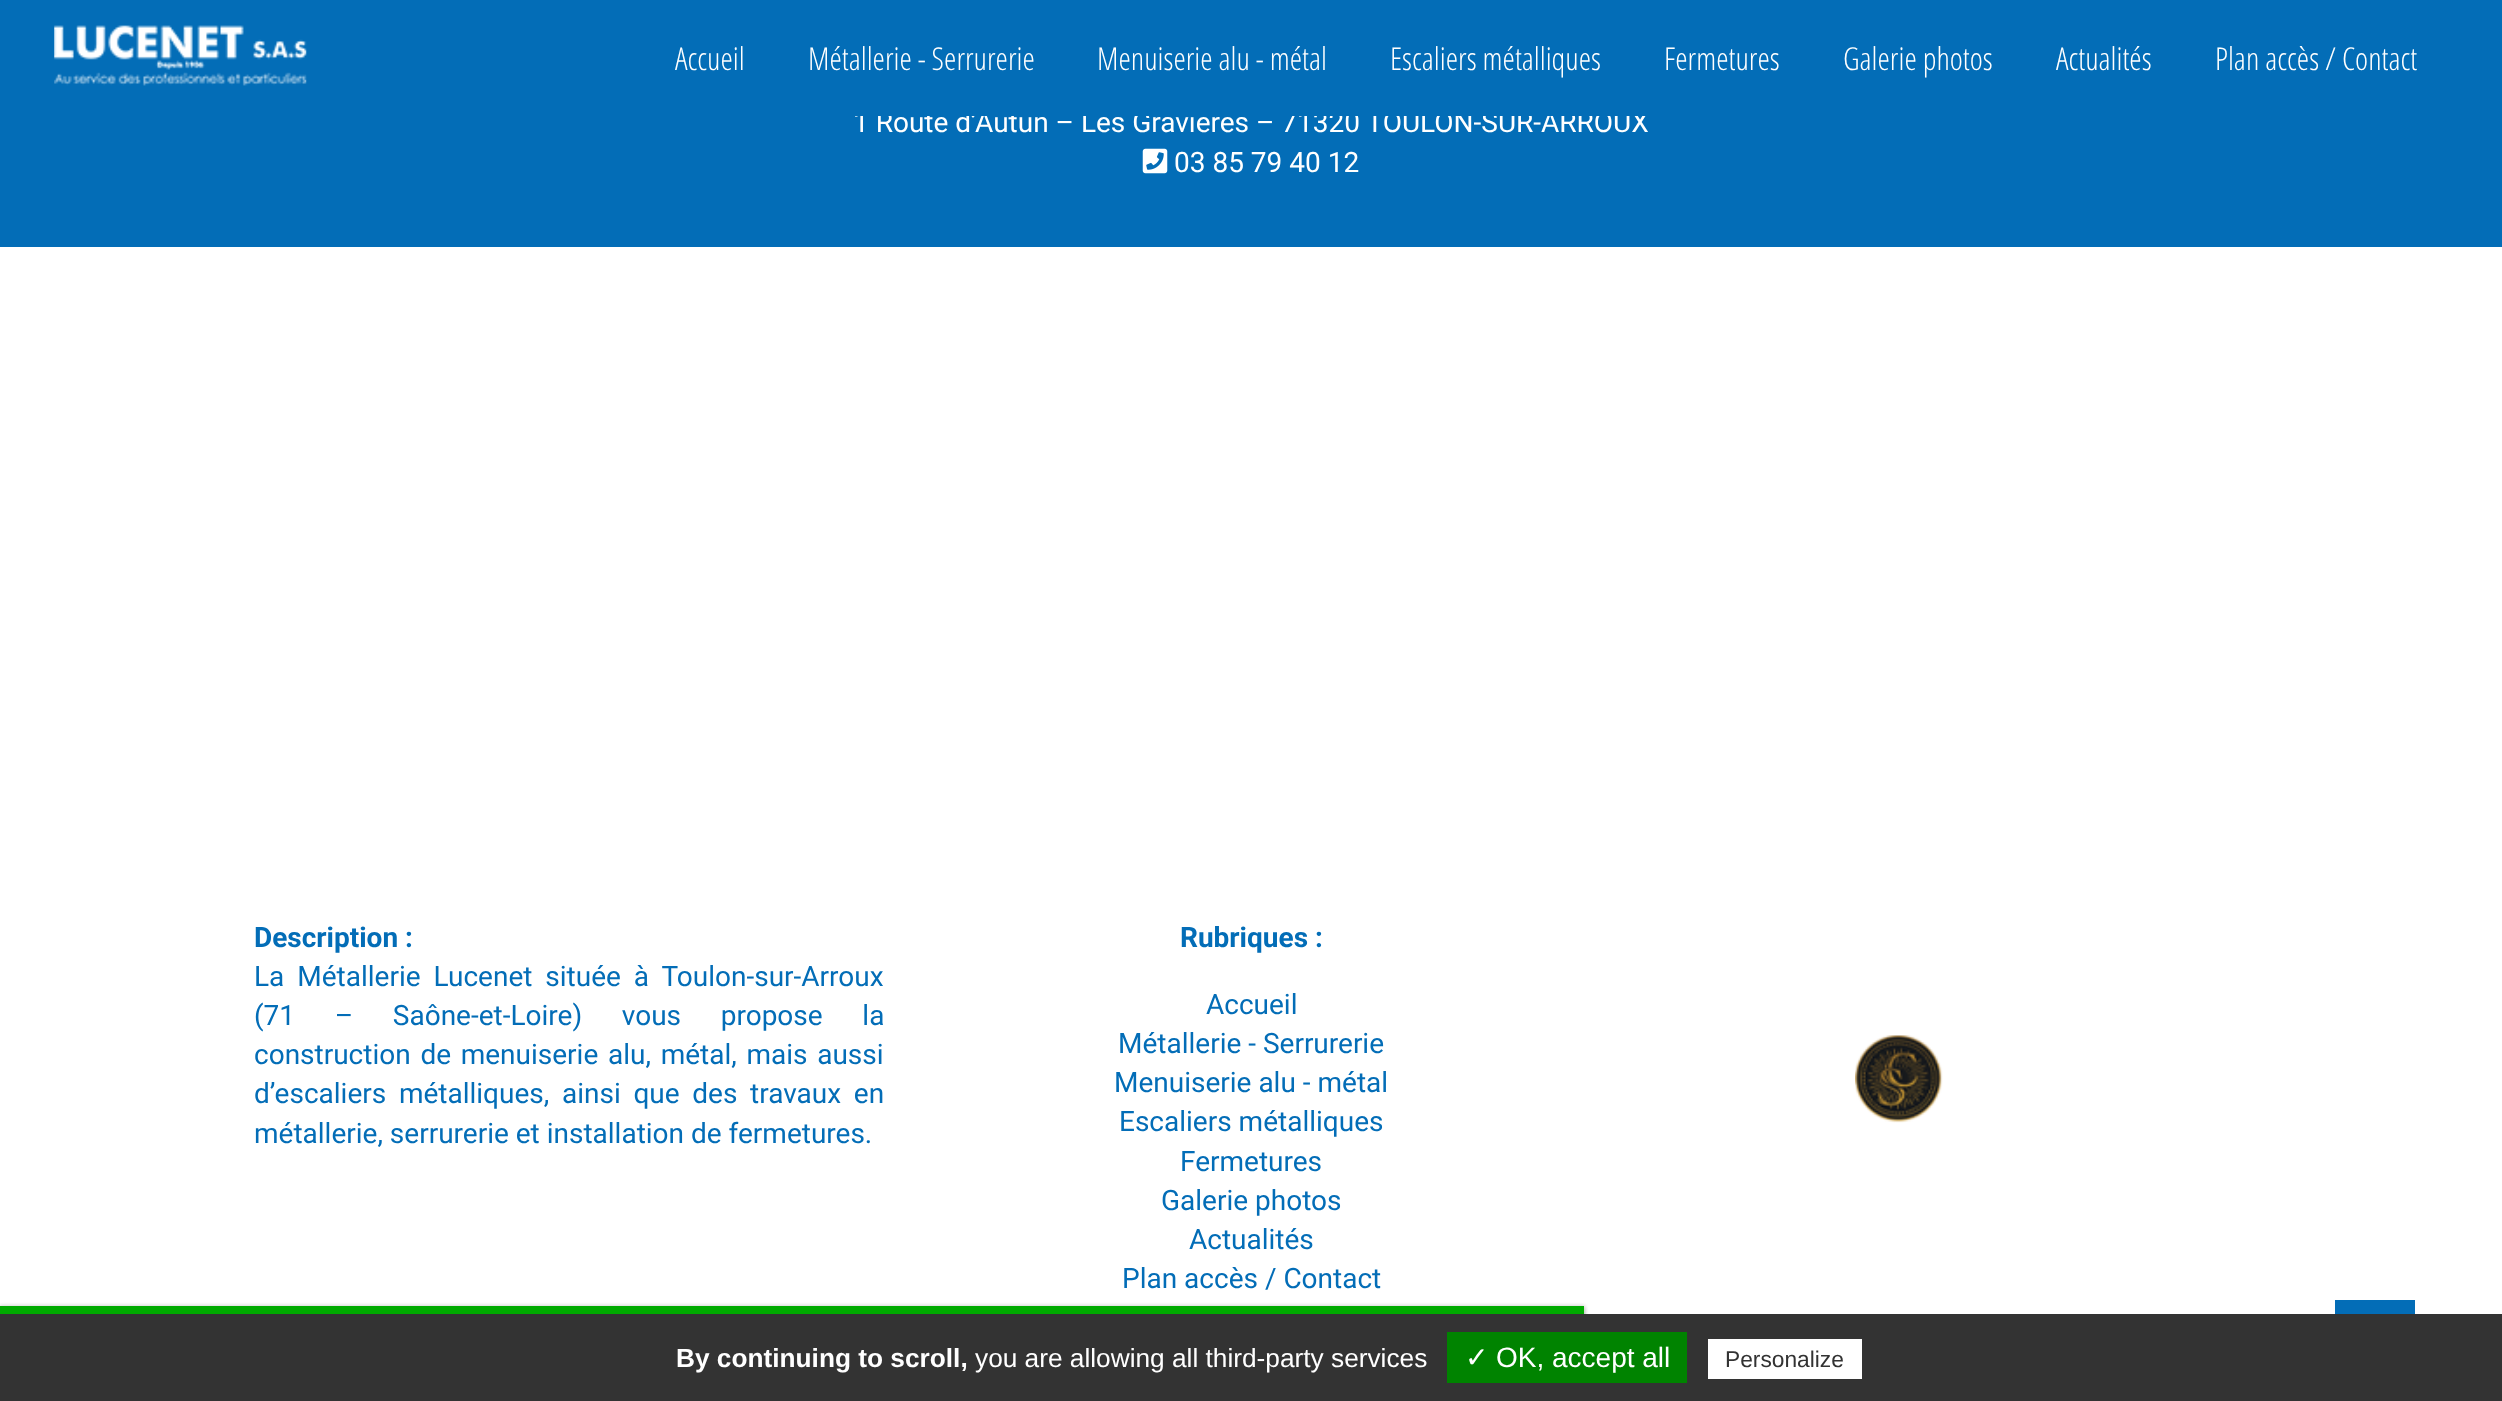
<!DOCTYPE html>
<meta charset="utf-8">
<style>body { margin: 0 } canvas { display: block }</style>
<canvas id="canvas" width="2502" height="1401"></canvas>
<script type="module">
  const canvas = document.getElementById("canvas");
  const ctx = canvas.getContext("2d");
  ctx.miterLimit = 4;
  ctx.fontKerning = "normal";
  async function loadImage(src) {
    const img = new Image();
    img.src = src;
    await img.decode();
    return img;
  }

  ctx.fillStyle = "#ffffff";
  ctx.fillRect(0, 0, 2502, 1401);
  ctx.fillStyle = "#036db7";
  ctx.fillRect(0, 116, 2502, 131);
  ctx.font = "28px Roboto";
  ctx.fillStyle = "#ffffff";
  ctx.fillText("1 Route d’Autun – Les Gravières – 71320 TOULON-SUR-ARROUX", 853, 132);
  ctx.fillStyle = "#036db7";
  ctx.fillRect(0, 0, 2502, 116);
  ctx.drawImage(await loadImage("img1.png"), 54, 25, 253, 61);
  ctx.font = "300 31.5px Open Sans Condensed";
  ctx.fillStyle = "#ffffff";
  ctx.fillText("Accueil", 675, 70);
  ctx.fillText("Métallerie - Serrurerie", 808, 70);
  ctx.fillText("Menuiserie alu - métal", 1097, 70);
  ctx.fillText("Escaliers métalliques", 1390, 70);
  ctx.fillText("Fermetures", 1664, 70);
  ctx.fillText("Galerie photos", 1843, 70);
  ctx.fillText("Actualités", 2056, 70);
  ctx.fillText("Plan accès / Contact", 2215, 70);
  ctx.drawImage(await loadImage("img2.png"), 1142, 148, 26, 26);
  ctx.font = "28px Roboto";
  ctx.fillText("03 85 79 40 12", 1174, 172);
  ctx.font = "bold 28px Roboto";
  ctx.fillStyle = "#036db7";
  ctx.fillText("Description :", 254, 947);
  ctx.wordSpacing = "6px";
  ctx.font = "28px Roboto";
  ctx.fillText("La Métallerie Lucenet située à Toulon-sur-Arroux", 254, 986);
  ctx.wordSpacing = "32.75px";
  ctx.fillText("(71 – Saône-et-Loire) vous propose la", 254, 1025);
  ctx.wordSpacing = "2.75px";
  ctx.fillText("construction de menuiserie alu, métal, mais aussi", 254, 1064);
  ctx.wordSpacing = "5.75px";
  ctx.fillText("d’escaliers métalliques, ainsi que des travaux en", 254, 1103);
  ctx.wordSpacing = "0px";
  ctx.fillText("métallerie, serrurerie et installation de fermetures.", 254, 1143);
  ctx.font = "bold 28px Roboto";
  ctx.fillText("Rubriques :", 1180, 947);
  ctx.font = "28px Roboto";
  ctx.fillText("Accueil", 1206, 1014);
  ctx.fillText("Métallerie - Serrurerie", 1118, 1053);
  ctx.fillText("Menuiserie alu - métal", 1114, 1092);
  ctx.fillText("Escaliers métalliques", 1119, 1131);
  ctx.fillText("Fermetures", 1180, 1171);
  ctx.fillText("Galerie photos", 1161, 1210);
  ctx.fillText("Actualités", 1189, 1249);
  ctx.fillText("Plan accès / Contact", 1122, 1288);
  ctx.drawImage(await loadImage("img3.png"), 1855, 1035, 88, 88);
  ctx.fillRect(2335, 1300, 80, 14);
  ctx.fillStyle = "#555555";
  ctx.filter = "blur(2px)";
  ctx.beginPath();
  ctx.rect(0, 1307, 1584, 9);
  ctx.fill();
  ctx.filter = "none";
  ctx.fillStyle = "#ffffff";
  ctx.filter = "blur(2px)";
  ctx.beginPath();
  ctx.rect(0, 1306, 1584, 8);
  ctx.fill();
  ctx.filter = "none";
  ctx.fillStyle = "#00aa00";
  ctx.fillRect(0, 1306, 1584, 8);
  ctx.fillStyle = "#333333";
  ctx.fillRect(0, 1314, 2502, 87);
  ctx.font = "bold 26.25px Liberation Sans";
  ctx.fillStyle = "#ffffff";
  ctx.fillText("By continuing to scroll,", 676, 1367);
  ctx.font = "26.25px Liberation Sans";
  ctx.fillText("you are allowing all third-party services", 975, 1367);
  ctx.fillStyle = "#008300";
  ctx.fillRect(1447, 1332, 240, 51);
  ctx.font = "28px DejaVu Sans";
  ctx.fillStyle = "#ffffff";
  ctx.fillText("✓", 1465, 1367);
  ctx.font = "28px Liberation Sans";
  ctx.fillText("OK, accept all", 1496, 1367);
  ctx.fillRect(1708, 1339, 154, 40);
  ctx.font = "22.75px Liberation Sans";
  ctx.fillStyle = "#333333";
  ctx.fillText("Personalize", 1725, 1367);
</script>
